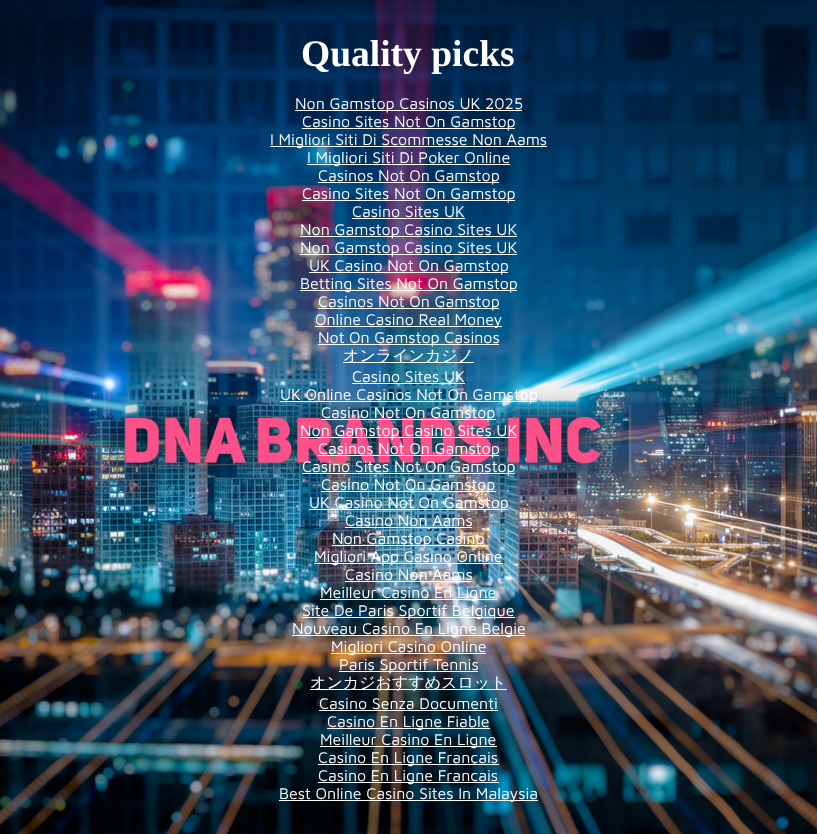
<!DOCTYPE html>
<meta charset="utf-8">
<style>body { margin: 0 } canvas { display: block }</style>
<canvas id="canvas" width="817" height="834"></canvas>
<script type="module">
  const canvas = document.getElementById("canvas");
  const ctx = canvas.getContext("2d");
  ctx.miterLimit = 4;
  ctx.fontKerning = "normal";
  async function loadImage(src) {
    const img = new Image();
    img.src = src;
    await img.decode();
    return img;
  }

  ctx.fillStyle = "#ffffff";
  ctx.fillRect(0, 0, 817, 834);
  ctx.drawImage(await loadImage("img1.png"), 0, 0, 817, 834);
  ctx.font = "bold 37.5px Liberation Serif";
  ctx.fillText("Quality picks", 301, 66);
  ctx.fillRect(295, 110, 227, 1);
  ctx.font = "16px Maven Pro";
  ctx.fillText("Non Gamstop Casinos UK 2025", 295, 109);
  ctx.fillRect(302, 128, 213, 1);
  ctx.fillText("Casino Sites Not On Gamstop", 302, 127);
  ctx.fillRect(270, 146, 277, 1);
  ctx.fillText("I Migliori Siti Di Scommesse Non Aams", 270, 145);
  ctx.fillRect(307, 164, 203, 1);
  ctx.fillText("I Migliori Siti Di Poker Online", 307, 163);
  ctx.fillRect(318, 182, 181, 1);
  ctx.fillText("Casinos Not On Gamstop", 318, 181);
  ctx.fillRect(302, 200, 213, 1);
  ctx.fillText("Casino Sites Not On Gamstop", 302, 199);
  ctx.fillText("Casino Sites UK", 352, 217);
  ctx.fillRect(352, 218, 113, 1);
  ctx.fillRect(300, 236, 217, 1);
  ctx.fillText("Non Gamstop Casino Sites UK", 300, 235);
  ctx.fillRect(300, 254, 217, 1);
  ctx.fillText("Non Gamstop Casino Sites UK", 300, 253);
  ctx.fillRect(309, 272, 199, 1);
  ctx.fillText("UK Casino Not On Gamstop", 309, 271);
  ctx.fillRect(300, 290, 217, 1);
  ctx.fillText("Betting Sites Not On Gamstop", 300, 289);
  ctx.fillRect(318, 308, 181, 1);
  ctx.fillText("Casinos Not On Gamstop", 318, 307);
  ctx.fillRect(315, 326, 187, 1);
  ctx.fillText("Online Casino Real Money", 315, 325);
  ctx.fillRect(318, 344, 181, 1);
  ctx.fillText("Not On Gamstop Casinos", 318, 343);
  ctx.fillRect(343, 362, 131, 1);
  ctx.font = "500 16px WenQuanYi Zen Hei";
  ctx.fillText("オンラインカジノ", 343, 361);
  ctx.font = "16px Maven Pro";
  ctx.fillText("Casino Sites UK", 352, 382);
  ctx.fillRect(352, 383, 113, 1);
  ctx.fillRect(280, 401, 257, 1);
  ctx.fillText("UK Online Casinos Not On Gamstop", 280, 400);
  ctx.fillRect(321, 419, 175, 1);
  ctx.fillText("Casino Not On Gamstop", 321, 418);
  ctx.fillRect(300, 437, 217, 1);
  ctx.fillText("Non Gamstop Casino Sites UK", 300, 436);
  ctx.fillRect(318, 455, 181, 1);
  ctx.fillText("Casinos Not On Gamstop", 318, 454);
  ctx.fillRect(302, 473, 213, 1);
  ctx.fillText("Casino Sites Not On Gamstop", 302, 472);
  ctx.fillRect(321, 491, 175, 1);
  ctx.fillText("Casino Not On Gamstop", 321, 490);
  ctx.fillRect(309, 509, 199, 1);
  ctx.fillText("UK Casino Not On Gamstop", 309, 508);
  ctx.fillText("Casino Non Aams", 345, 526);
  ctx.fillRect(345, 527, 127, 1);
  ctx.fillRect(332, 545, 153, 1);
  ctx.fillText("Non Gamstop Casino", 332, 544);
  ctx.fillRect(314, 563, 189, 1);
  ctx.fillText("Migliori App Casino Online", 314, 562);
  ctx.fillText("Casino Non Aams", 345, 580);
  ctx.fillRect(345, 581, 127, 1);
  ctx.fillRect(320, 599, 177, 1);
  ctx.fillText("Meilleur Casino En Ligne", 320, 598);
  ctx.fillRect(302, 617, 213, 1);
  ctx.fillText("Site De Paris Sportif Belgique", 302, 616);
  ctx.fillRect(292, 635, 233, 1);
  ctx.fillText("Nouveau Casino En Ligne Belgie", 292, 634);
  ctx.fillRect(331, 653, 155, 1);
  ctx.fillText("Migliori Casino Online", 331, 652);
  ctx.fillRect(339, 671, 139, 1);
  ctx.fillText("Paris Sportif Tennis", 339, 670);
  ctx.fillRect(310, 689, 197, 1);
  ctx.font = "500 16px WenQuanYi Zen Hei";
  ctx.fillText("オンカジおすすめスロット", 310, 688);
  ctx.font = "16px Maven Pro";
  ctx.fillText("Casino Senza Documenti", 319, 709);
  ctx.fillRect(319, 710, 179, 1);
  ctx.fillRect(327, 728, 163, 1);
  ctx.fillText("Casino En Ligne Fiable", 327, 727);
  ctx.fillRect(320, 746, 177, 1);
  ctx.fillText("Meilleur Casino En Ligne", 320, 745);
  ctx.fillRect(318, 764, 181, 1);
  ctx.fillText("Casino En Ligne Français", 318, 763);
  ctx.fillRect(318, 782, 181, 1);
  ctx.fillText("Casino En Ligne Francais", 318, 781);
  ctx.fillRect(279, 800, 259, 1);
  ctx.fillText("Best Online Casino Sites In Malaysia", 279, 799);
</script>
